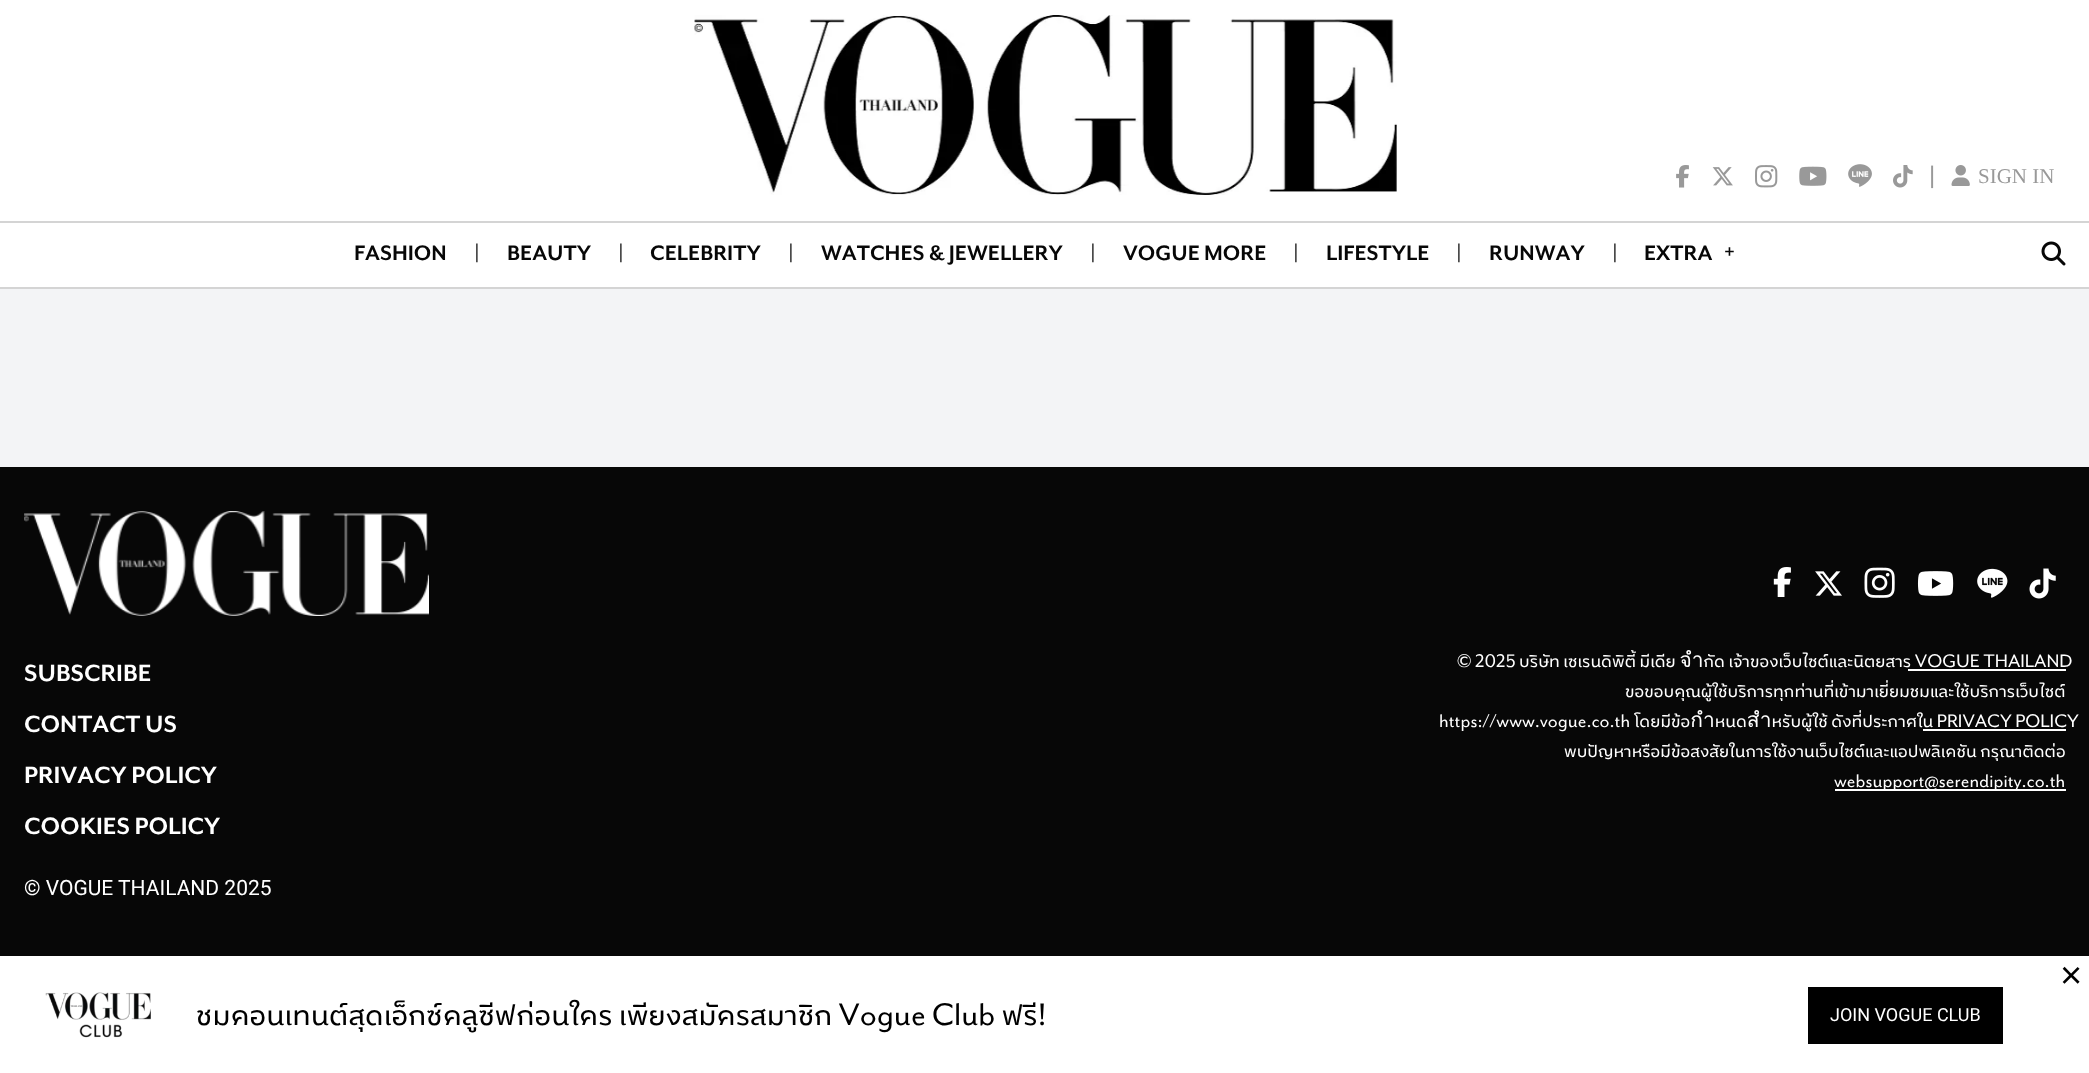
<!DOCTYPE html>
<meta charset="utf-8">
<style>body { margin: 0 } canvas { display: block }</style>
<canvas id="canvas" width="2089" height="1073"></canvas>
<script type="module">
  const canvas = document.getElementById("canvas");
  const ctx = canvas.getContext("2d");
  ctx.miterLimit = 4;
  ctx.fontKerning = "normal";
  async function loadImage(src) {
    const img = new Image();
    img.src = src;
    await img.decode();
    return img;
  }

  ctx.fillStyle = "#f3f4f6";
  ctx.fillRect(0, 0, 2089, 1073);
  ctx.fillStyle = "#ffffff";
  ctx.fillRect(0, 0, 2089, 287);
  ctx.drawImage(await loadImage("img1.png"), 694, 15, 703, 180);
  ctx.drawImage(await loadImage("img2.png"), 1676, 165, 13, 23);
  ctx.drawImage(await loadImage("img3.png"), 1712, 167, 21, 19);
  ctx.drawImage(await loadImage("img4.png"), 1755, 165, 23, 23);
  ctx.drawImage(await loadImage("img5.png"), 1799, 166, 28, 20);
  ctx.drawImage(await loadImage("img6.png"), 1848, 164, 24, 23);
  ctx.drawImage(await loadImage("img7.png"), 1893, 165, 20, 23);
  ctx.font = "24px Liberation Sans";
  ctx.fillStyle = "#999999";
  ctx.fillText("|", 1929, 183);
  ctx.drawImage(await loadImage("img8.png"), 1951, 165, 19, 21);
  ctx.font = "21px Liberation Serif";
  ctx.fillText("SIGN IN", 1978, 183);
  ctx.fillStyle = "#d4d4d4";
  ctx.fillRect(0, 221, 2089, 2);
  ctx.fillRect(0, 287, 2089, 2);
  ctx.font = "bold 24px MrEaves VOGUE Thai";
  ctx.fillStyle = "#070707";
  ctx.fillText("FASHION", 354, 260);
  ctx.fillText("|", 474, 260);
  ctx.fillText("BEAUTY", 507, 260);
  ctx.fillText("|", 618, 260);
  ctx.fillText("CELEBRITY", 650, 260);
  ctx.fillText("|", 788, 260);
  ctx.fillText("WATCHES & JEWELLERY", 821, 260);
  ctx.fillText("|", 1090, 260);
  ctx.fillText("VOGUE MORE", 1123, 260);
  ctx.fillText("|", 1293, 260);
  ctx.fillText("LIFESTYLE", 1326, 260);
  ctx.fillText("|", 1456, 260);
  ctx.fillText("RUNWAY", 1489, 260);
  ctx.fillText("|", 1612, 260);
  ctx.fillText("EXTRA", 1644, 260);
  ctx.fillText("+", 1724, 257);
  ctx.drawImage(await loadImage("img9.png"), 2041, 241, 25, 25);
  ctx.fillRect(0, 467, 2089, 489);
  ctx.drawImage(await loadImage("img10.png"), 24, 511, 405, 105);
  ctx.drawImage(await loadImage("img11.png"), 1773, 567, 18, 30);
  ctx.drawImage(await loadImage("img12.png"), 1815, 571, 27, 25);
  ctx.drawImage(await loadImage("img13.png"), 1864, 567, 31, 31);
  ctx.drawImage(await loadImage("img14.png"), 1917, 571, 37, 25);
  ctx.drawImage(await loadImage("img15.png"), 1977, 568, 31, 30);
  ctx.drawImage(await loadImage("img16.png"), 2029, 568, 27, 31);
  ctx.font = "bold 27px MrEaves VOGUE Thai";
  ctx.fillStyle = "#ffffff";
  ctx.fillText("SUBSCRIBE", 24, 681);
  ctx.fillText("CONTACT US", 24, 732);
  ctx.fillText("PRIVACY POLICY", 24, 783);
  ctx.fillText("COOKIES POLICY", 24, 834);
  ctx.font = "21px Roboto";
  ctx.fillText("© VOGUE THAILAND 2025", 24, 895);
  ctx.font = "21px MrEaves VOGUE Thai";
  ctx.fillText("© 2025 บริษัท เซเรนดิพิตี้ มีเดีย จำกัด เจ้าของเว็บไซต์และนิตยสาร VOGUE THAILAND", 1457, 667);
  ctx.fillRect(1908, 669, 158, 2);
  ctx.fillText("ขอขอบคุณผู้ใช้บริการทุกท่านที่เข้ามาเยี่ยมชมและใช้บริการเว็บไซต์", 1625, 697);
  ctx.fillText("https://www.vogue.co.th โดยมีข้อกำหนดสำหรับผู้ใช้ ดังที่ประกาศใน PRIVACY POLICY", 1439, 727);
  ctx.fillRect(1923, 729, 143, 2);
  ctx.fillText("พบปัญหาหรือมีข้อสงสัยในการใช้งานเว็บไซต์และแอปพลิเคชัน กรุณาติดต่อ", 1564, 757);
  ctx.fillRect(1835, 789, 231, 2);
  ctx.fillText("websupport@serendipity.co.th", 1834, 787);
  ctx.fillRect(0, 956, 2089, 117);
  ctx.font = "38px Liberation Sans";
  ctx.fillStyle = "#000000";
  ctx.fillText("×", 2060, 988);
  ctx.drawImage(await loadImage("img17.png"), 45, 992, 106, 46);
  ctx.font = "36px MrEaves VOGUE Thai";
  ctx.fillText("ชมคอนเทนต์สุดเอ็กซ์คลูซีฟก่อนใคร เพียงสมัครสมาชิก Vogue Club ฟรี!", 196, 1025);
  ctx.fillRect(1808, 987, 195, 57);
  ctx.font = "18px Roboto";
  ctx.fillStyle = "#ffffff";
  ctx.fillText("JOIN VOGUE CLUB", 1830, 1021);
</script>
